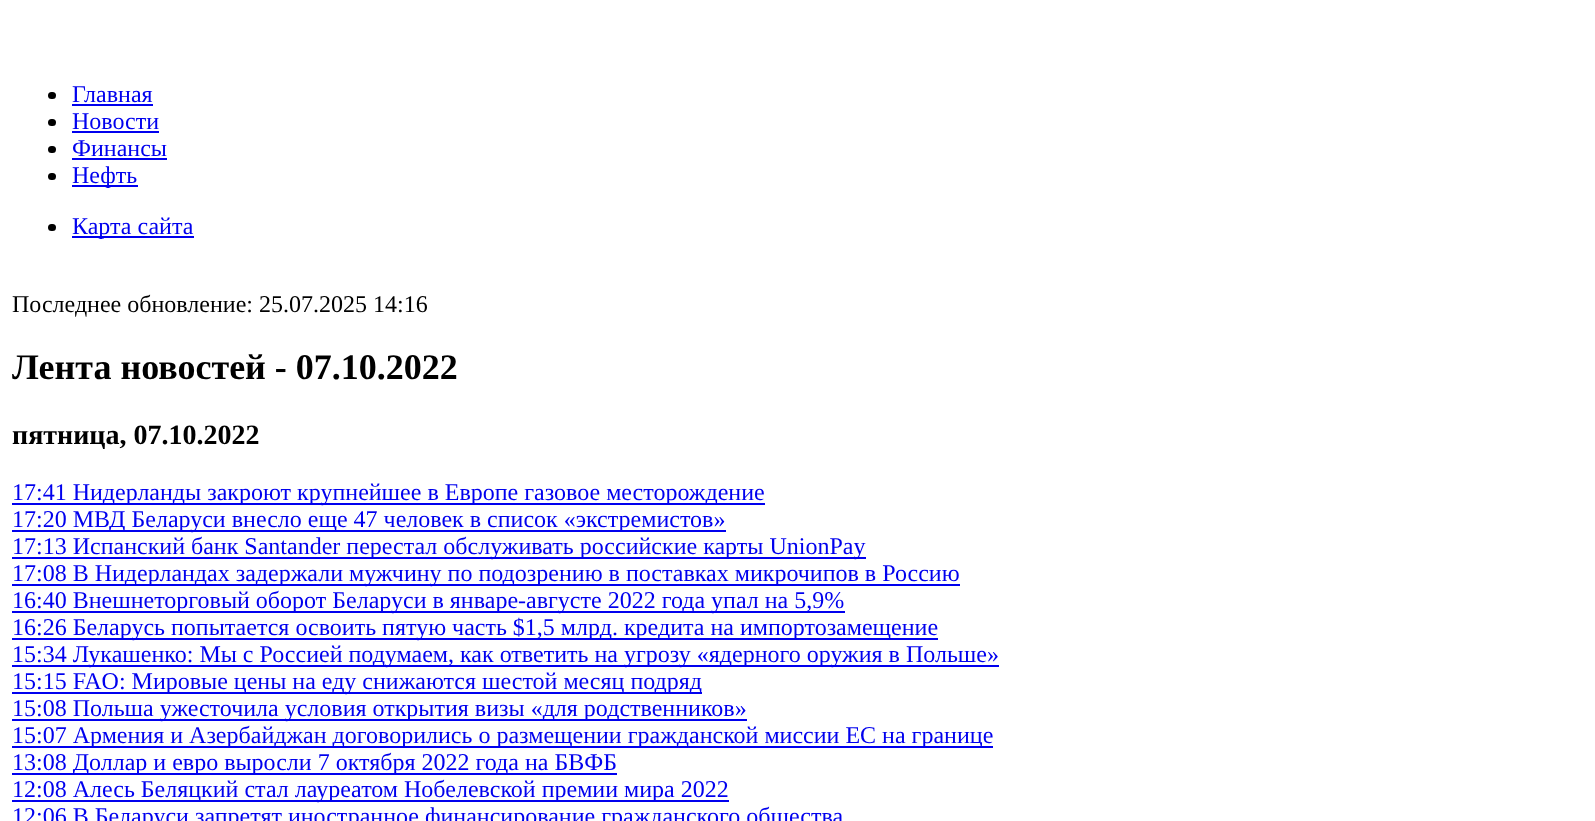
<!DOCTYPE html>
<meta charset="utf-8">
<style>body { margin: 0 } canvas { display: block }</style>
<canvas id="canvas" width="1595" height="821"></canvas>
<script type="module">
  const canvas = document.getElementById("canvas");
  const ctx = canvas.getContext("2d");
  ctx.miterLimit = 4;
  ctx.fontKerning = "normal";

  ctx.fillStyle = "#ffffff";
  ctx.fillRect(0, 0, 1595, 821);
  ctx.fillStyle = "#000000";
  ctx.beginPath();
  ctx.roundRect(48, 92, 8, 7, 3.5);
  ctx.fill();
  ctx.font = "24px Liberation Serif";
  ctx.fillStyle = "#0000ee";
  ctx.fillText("Главная", 72, 102);
  ctx.fillRect(72, 104, 81, 2);
  ctx.fillStyle = "#000000";
  ctx.beginPath();
  ctx.roundRect(48, 119, 8, 7, 3.5);
  ctx.fill();
  ctx.fillStyle = "#0000ee";
  ctx.fillText("Новости", 72, 129);
  ctx.fillRect(72, 131, 87, 2);
  ctx.fillStyle = "#000000";
  ctx.beginPath();
  ctx.roundRect(48, 146, 8, 7, 3.5);
  ctx.fill();
  ctx.fillStyle = "#0000ee";
  ctx.fillText("Финансы", 72, 156);
  ctx.fillRect(72, 158, 95, 2);
  ctx.fillStyle = "#000000";
  ctx.beginPath();
  ctx.roundRect(48, 173, 8, 7, 3.5);
  ctx.fill();
  ctx.fillStyle = "#0000ee";
  ctx.fillRect(72, 185, 66, 2);
  ctx.fillText("Нефть", 72, 183);
  ctx.fillStyle = "#000000";
  ctx.beginPath();
  ctx.roundRect(48, 224, 8, 7, 3.5);
  ctx.fill();
  ctx.fillStyle = "#0000ee";
  ctx.fillRect(72, 236, 122, 2);
  ctx.fillText("Карта сайта", 72, 234);
  ctx.fillStyle = "#000000";
  ctx.fillText("Последнее обновление: 25.07.2025 14:16", 12, 312);
  ctx.font = "bold 36px Liberation Serif";
  ctx.fillText("Лента новостей - 07.10.2022", 12, 379);
  ctx.font = "bold 28px Liberation Serif";
  ctx.fillText("пятница, 07.10.2022", 12, 444);
  ctx.fillStyle = "#0000ee";
  ctx.fillRect(12, 503, 753, 2);
  ctx.font = "24px Liberation Serif";
  ctx.fillText("17:41 Нидерланды закроют крупнейшее в Европе газовое месторождение", 12, 500);
  ctx.fillRect(12, 530, 714, 2);
  ctx.fillText("17:20 МВД Беларуси внесло еще 47 человек в список «экстремистов»", 12, 527);
  ctx.fillRect(12, 557, 854, 2);
  ctx.fillText("17:13 Испанский банк Santander перестал обслуживать российские карты UnionPay", 12, 554);
  ctx.fillRect(12, 584, 948, 2);
  ctx.fillText("17:08 В Нидерландах задержали мужчину по подозрению в поставках микрочипов в Россию", 12, 581);
  ctx.fillRect(12, 611, 833, 2);
  ctx.fillText("16:40 Внешнеторговый оборот Беларуси в январе-августе 2022 года упал на 5,9%", 12, 608);
  ctx.fillRect(12, 638, 926, 2);
  ctx.fillText("16:26 Беларусь попытается освоить пятую часть $1,5 млрд. кредита на импортозамещение", 12, 635);
  ctx.fillRect(12, 665, 987, 2);
  ctx.fillText("15:34 Лукашенко: Мы с Россией подумаем, как ответить на угрозу «ядерного оружия в Польше»", 12, 662);
  ctx.fillRect(12, 692, 690, 2);
  ctx.fillText("15:15 FAO: Мировые цены на еду снижаются шестой месяц подряд", 12, 689);
  ctx.fillRect(12, 719, 735, 2);
  ctx.fillText("15:08 Польша ужесточила условия открытия визы «для родственников»", 12, 716);
  ctx.fillRect(12, 746, 981, 2);
  ctx.fillText("15:07 Армения и Азербайджан договорились о размещении гражданской миссии ЕС на границе", 12, 743);
  ctx.fillRect(12, 773, 605, 2);
  ctx.fillText("13:08 Доллар и евро выросли 7 октября 2022 года на БВФБ", 12, 770);
  ctx.fillRect(12, 800, 717, 2);
  ctx.fillText("12:08 Алесь Беляцкий стал лауреатом Нобелевской премии мира 2022", 12, 797);
  ctx.fillText("12:06 В Беларуси запретят иностранное финансирование гражданского общества", 12, 824);
</script>
